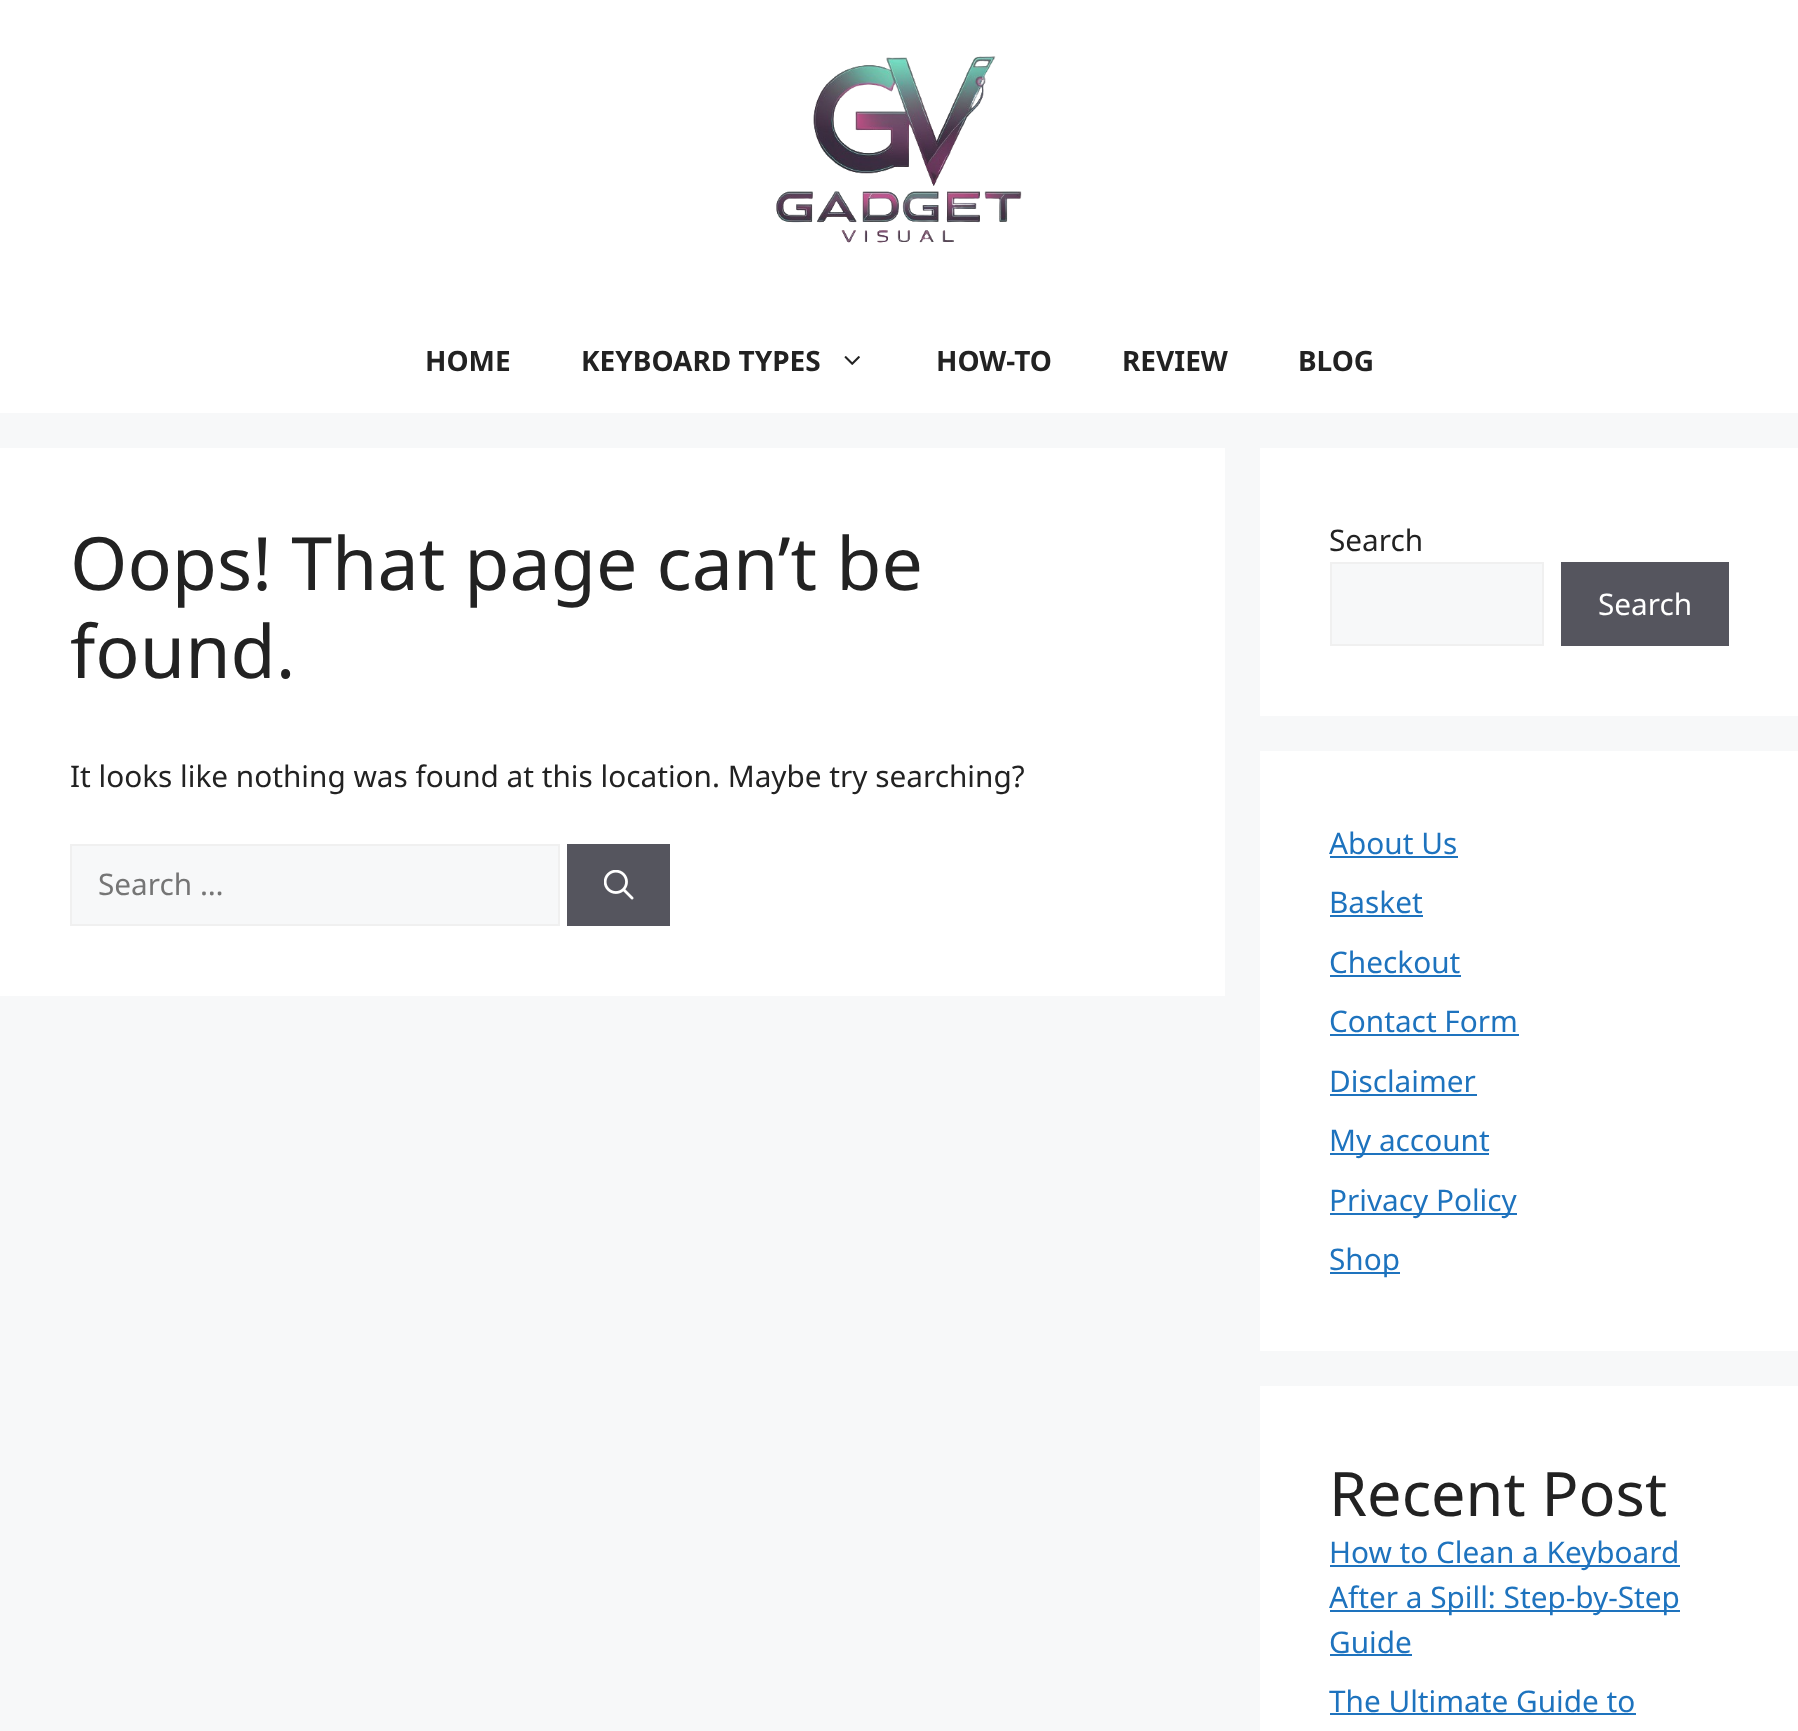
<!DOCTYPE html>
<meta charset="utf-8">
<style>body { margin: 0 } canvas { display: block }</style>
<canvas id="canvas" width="1798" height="1731"></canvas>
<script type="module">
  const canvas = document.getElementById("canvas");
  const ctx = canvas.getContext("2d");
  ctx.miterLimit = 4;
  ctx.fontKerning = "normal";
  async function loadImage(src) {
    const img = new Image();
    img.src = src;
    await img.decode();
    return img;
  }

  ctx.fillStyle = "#f7f8f9";
  ctx.fillRect(0, 0, 1798, 1731);
  ctx.fillStyle = "#ffffff";
  ctx.fillRect(0, 0, 1798, 413);
  ctx.drawImage(await loadImage("img1.png"), 776, 56, 246, 187);
  ctx.font = "bold 28px Noto Sans";
  ctx.fillStyle = "#222222";
  ctx.fillText("HOME", 425, 371);
  ctx.fillText("KEYBOARD TYPES", 581, 371);
  ctx.drawImage(await loadImage("img2.png"), 844, 356, 16, 9);
  ctx.fillText("HOW-TO", 936, 371);
  ctx.fillText("REVIEW", 1122, 371);
  ctx.fillText("BLOG", 1298, 371);
  ctx.fillStyle = "#ffffff";
  ctx.fillRect(0, 448, 1225, 548);
  ctx.font = "73.5px Noto Sans";
  ctx.fillStyle = "#222222";
  ctx.fillText("Oops! That page can’t be", 70, 590);
  ctx.fillText("found.", 70, 678);
  ctx.font = "29.75px Noto Sans";
  ctx.fillText("It looks like nothing was found at this location. Maybe try searching?", 70, 787);
  ctx.fillStyle = "#f7f8f9";
  ctx.beginPath();
  ctx.rect(71, 845, 488, 80);
  ctx.fill();
  ctx.strokeStyle = "#f0f0f0";
  ctx.lineWidth = 2;
  ctx.stroke();
  ctx.fillStyle = "#757575";
  ctx.fillText("Search …", 98, 895);
  ctx.fillStyle = "#55555e";
  ctx.fillRect(567, 844, 103, 82);
  ctx.drawImage(await loadImage("img3.png"), 604, 870, 30, 30);
  ctx.fillStyle = "#ffffff";
  ctx.fillRect(1260, 448, 538, 268);
  ctx.fillStyle = "#222222";
  ctx.fillText("Search", 1329, 551);
  ctx.fillStyle = "#f7f8f9";
  ctx.beginPath();
  ctx.rect(1331, 563, 212, 82);
  ctx.fill();
  ctx.stroke();
  ctx.fillStyle = "#55555e";
  ctx.fillRect(1561, 562, 168, 84);
  ctx.fillStyle = "#ffffff";
  ctx.fillText("Search", 1598, 615);
  ctx.fillRect(1260, 751, 538, 600);
  ctx.fillStyle = "#1e73be";
  ctx.fillText("About Us", 1329, 854);
  ctx.fillRect(1330, 856, 128, 2);
  ctx.fillText("Basket", 1329, 913);
  ctx.fillRect(1330, 915, 93, 2);
  ctx.fillText("Checkout", 1329, 973);
  ctx.fillRect(1330, 975, 131, 2);
  ctx.fillText("Contact Form", 1329, 1032);
  ctx.fillRect(1330, 1034, 189, 2);
  ctx.fillText("Disclaimer", 1329, 1092);
  ctx.fillRect(1330, 1094, 147, 2);
  ctx.fillRect(1330, 1153, 159, 2);
  ctx.fillText("My account", 1329, 1151);
  ctx.fillRect(1330, 1213, 187, 2);
  ctx.fillText("Privacy Policy", 1329, 1211);
  ctx.fillRect(1330, 1272, 70, 2);
  ctx.fillText("Shop", 1329, 1270);
  ctx.fillStyle = "#ffffff";
  ctx.fillRect(1260, 1386, 538, 345);
  ctx.font = "61.25px Noto Sans";
  ctx.fillStyle = "#222222";
  ctx.fillText("Recent Post", 1329, 1516);
  ctx.fillStyle = "#1e73be";
  ctx.fillRect(1330, 1565, 350, 2);
  ctx.font = "29.75px Noto Sans";
  ctx.fillText("How to Clean a Keyboard", 1329, 1563);
  ctx.fillRect(1330, 1610, 350, 2);
  ctx.fillText("After a Spill: Step-by-Step", 1329, 1608);
  ctx.fillText("Guide", 1329, 1653);
  ctx.fillRect(1330, 1654, 82, 2);
  ctx.fillText("The Ultimate Guide to", 1329, 1712);
  ctx.fillRect(1330, 1713, 306, 2);
</script>
